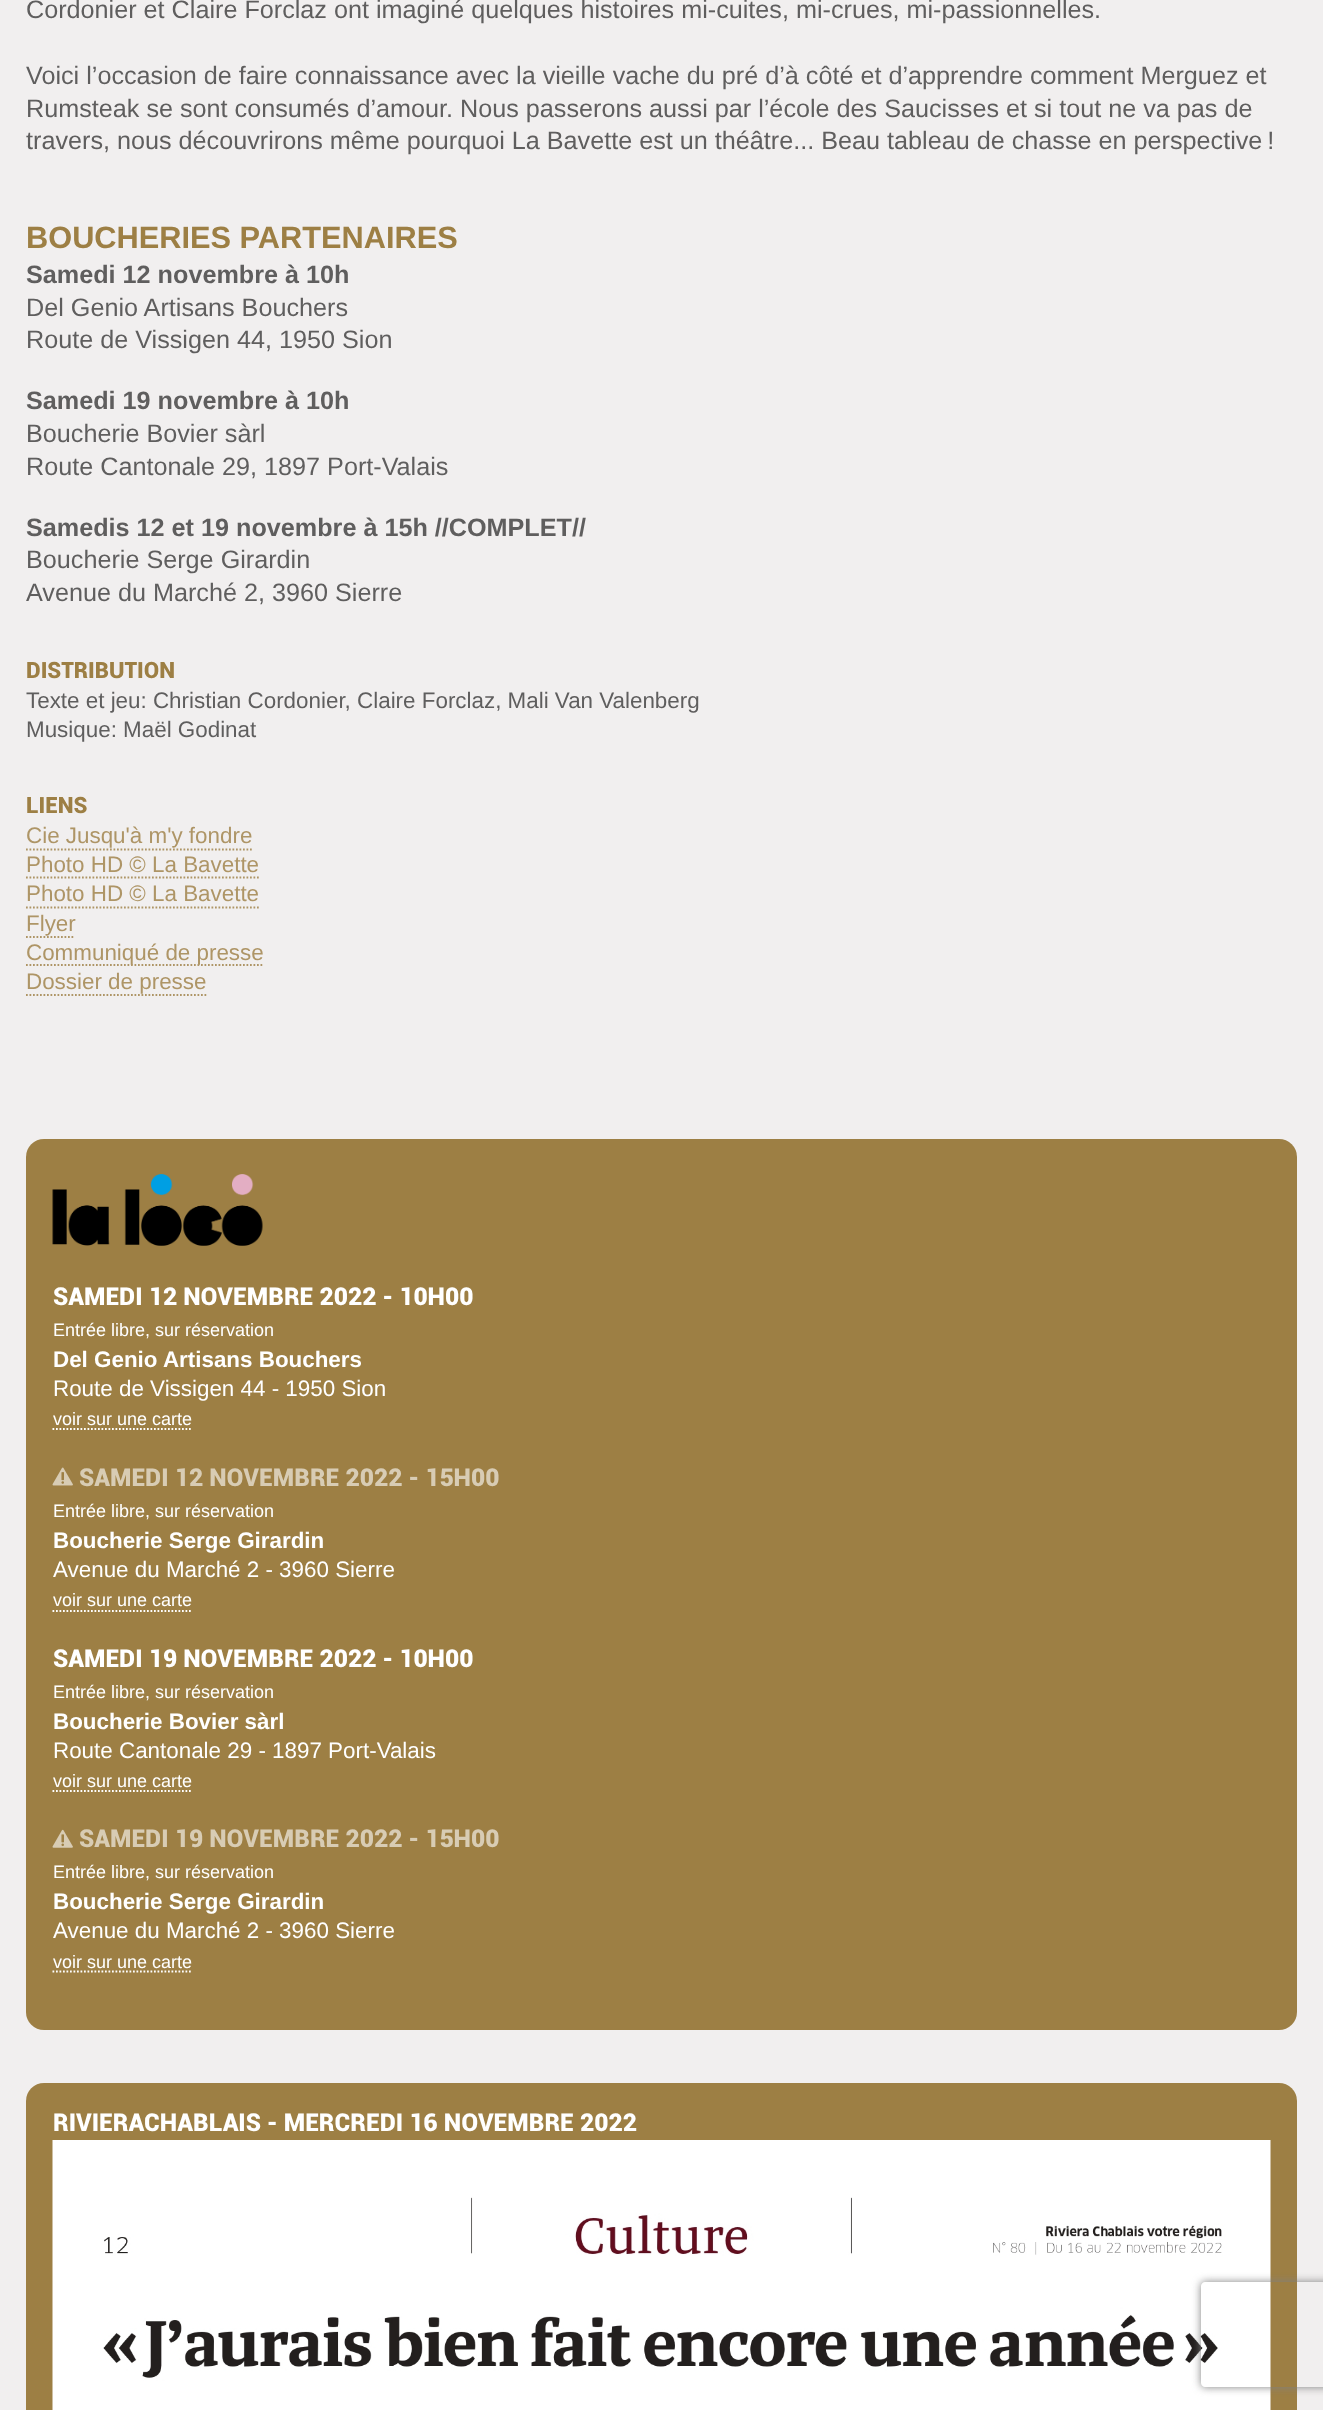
<!DOCTYPE html>
<meta charset="utf-8">
<style>body { margin: 0 } canvas { display: block }</style>
<canvas id="canvas" width="1323" height="2410"></canvas>
<script type="module">
  const canvas = document.getElementById("canvas");
  const ctx = canvas.getContext("2d");
  ctx.miterLimit = 4;
  ctx.fontKerning = "normal";
  async function loadImage(src) {
    const img = new Image();
    img.src = src;
    await img.decode();
    return img;
  }

  ctx.fillStyle = "#f1efef";
  ctx.fillRect(0, 0, 1323, 2410);
  ctx.font = "25.2px Liberation Sans";
  ctx.fillStyle = "#5f5e5e";
  ctx.fillText("Cordonier et Claire Forclaz ont imaginé quelques histoires mi-cuites, mi-crues, mi-passionnelles.", 26, 18);
  ctx.fillText("Voici l’occasion de faire connaissance avec la vieille vache du pré d’à côté et d’apprendre comment Merguez et", 26, 84);
  ctx.fillText("Rumsteak se sont consumés d’amour. Nous passerons aussi par l’école des Saucisses et si tout ne va pas de", 26, 117);
  ctx.fillText("travers, nous découvrirons même pourquoi La Bavette est un théâtre... Beau tableau de chasse en perspective !", 26, 149);
  ctx.font = "bold 30.75px Liberation Sans";
  ctx.fillStyle = "#9d7f44";
  ctx.fillText("BOUCHERIES PARTENAIRES", 26, 248);
  ctx.font = "bold 25.2px Liberation Sans";
  ctx.fillStyle = "#5f5e5e";
  ctx.fillText("Samedi 12 novembre à 10h", 26, 283);
  ctx.font = "25.2px Liberation Sans";
  ctx.fillText("Del Genio Artisans Bouchers", 26, 316);
  ctx.fillText("Route de Vissigen 44, 1950 Sion", 26, 348);
  ctx.font = "bold 25.2px Liberation Sans";
  ctx.fillText("Samedi 19 novembre à 10h", 26, 409);
  ctx.font = "25.2px Liberation Sans";
  ctx.fillText("Boucherie Bovier sàrl", 26, 442);
  ctx.fillText("Route Cantonale 29, 1897 Port-Valais", 26, 475);
  ctx.font = "bold 25.2px Liberation Sans";
  ctx.fillText("Samedis 12 et 19 novembre à 15h //COMPLET//", 26, 536);
  ctx.font = "25.2px Liberation Sans";
  ctx.fillText("Boucherie Serge Girardin", 26, 568);
  ctx.fillText("Avenue du Marché 2, 3960 Sierre", 26, 601);
  ctx.font = "900 22.4px Roboto";
  ctx.fillStyle = "#9d7f44";
  ctx.fillText("DISTRIBUTION", 26, 678);
  ctx.font = "22.4px Liberation Sans";
  ctx.fillStyle = "#5f5e5e";
  ctx.fillText("Texte et jeu: Christian Cordonier, Claire Forclaz, Mali Van Valenberg", 26, 708);
  ctx.fillText("Musique: Maël Godinat", 26, 737);
  ctx.font = "900 22.4px Roboto";
  ctx.fillStyle = "#9d7f44";
  ctx.fillText("LIENS", 26, 813);
  ctx.font = "22.4px Liberation Sans";
  ctx.fillStyle = "#ae9566";
  ctx.fillText("Cie Jusqu'à m'y fondre", 26, 843);
  ctx.beginPath();
  ctx.moveTo(26, 849.5);
  ctx.lineTo(252, 849.5);
  ctx.strokeStyle = "#ae9566";
  ctx.lineWidth = 1.8;
  ctx.setLineDash([1.75, 1.75]);
  ctx.stroke();
  ctx.fillText("Photo HD © La Bavette", 26, 872);
  ctx.beginPath();
  ctx.moveTo(26, 877.5);
  ctx.lineTo(259, 877.5);
  ctx.stroke();
  ctx.fillText("Photo HD © La Bavette", 26, 901);
  ctx.beginPath();
  ctx.moveTo(26, 907.5);
  ctx.lineTo(259, 907.5);
  ctx.stroke();
  ctx.fillText("Flyer", 26, 931);
  ctx.beginPath();
  ctx.moveTo(26, 937);
  ctx.lineTo(75, 937);
  ctx.stroke();
  ctx.beginPath();
  ctx.moveTo(26, 965);
  ctx.lineTo(264, 965);
  ctx.stroke();
  ctx.fillText("Communiqué de presse", 26, 960);
  ctx.fillText("Dossier de presse", 26, 989);
  ctx.beginPath();
  ctx.moveTo(26, 995);
  ctx.lineTo(206.5, 995);
  ctx.stroke();
  ctx.fillStyle = "#9d7f44";
  ctx.beginPath();
  ctx.roundRect(26, 1139, 1271, 891, 18);
  ctx.fill();
  ctx.drawImage(await loadImage("img1.png"), 52, 1174, 211, 72);
  ctx.font = "900 24.6px Roboto";
  ctx.fillStyle = "#ffffff";
  ctx.fillText("SAMEDI 12 NOVEMBRE 2022 - 10H00", 53, 1305);
  ctx.font = "18px Liberation Sans";
  ctx.fillText("Entrée libre, sur réservation", 53, 1336);
  ctx.font = "bold 22.4px Liberation Sans";
  ctx.fillText("Del Genio Artisans Bouchers", 53, 1367);
  ctx.font = "22.4px Liberation Sans";
  ctx.fillText("Route de Vissigen 44 - 1950 Sion", 53, 1396);
  ctx.font = "18px Liberation Sans";
  ctx.fillText("voir sur une carte", 53, 1425);
  ctx.beginPath();
  ctx.moveTo(52.5, 1429);
  ctx.lineTo(191, 1429);
  ctx.strokeStyle = "#ffffff";
  ctx.stroke();
  ctx.drawImage(await loadImage("img2.png"), 52, 1467, 21, 19);
  ctx.font = "900 24.6px Roboto";
  ctx.fillStyle = "#d8ccb4";
  ctx.fillText("SAMEDI 12 NOVEMBRE 2022 - 15H00", 79, 1486);
  ctx.font = "18px Liberation Sans";
  ctx.fillStyle = "#ffffff";
  ctx.fillText("Entrée libre, sur réservation", 53, 1517);
  ctx.font = "bold 22.4px Liberation Sans";
  ctx.fillText("Boucherie Serge Girardin", 53, 1548);
  ctx.font = "22.4px Liberation Sans";
  ctx.fillText("Avenue du Marché 2 - 3960 Sierre", 53, 1577);
  ctx.font = "18px Liberation Sans";
  ctx.fillText("voir sur une carte", 53, 1606);
  ctx.beginPath();
  ctx.moveTo(52.5, 1611);
  ctx.lineTo(191, 1611);
  ctx.stroke();
  ctx.font = "900 24.6px Roboto";
  ctx.fillText("SAMEDI 19 NOVEMBRE 2022 - 10H00", 53, 1667);
  ctx.font = "18px Liberation Sans";
  ctx.fillText("Entrée libre, sur réservation", 53, 1698);
  ctx.font = "bold 22.4px Liberation Sans";
  ctx.fillText("Boucherie Bovier sàrl", 53, 1729);
  ctx.font = "22.4px Liberation Sans";
  ctx.fillText("Route Cantonale 29 - 1897 Port-Valais", 53, 1758);
  ctx.font = "18px Liberation Sans";
  ctx.fillText("voir sur une carte", 53, 1787);
  ctx.beginPath();
  ctx.moveTo(52.5, 1791);
  ctx.lineTo(191, 1791);
  ctx.stroke();
  ctx.drawImage(await loadImage("img3.png"), 52, 1829, 21, 19);
  ctx.font = "900 24.6px Roboto";
  ctx.fillStyle = "#d8ccb4";
  ctx.fillText("SAMEDI 19 NOVEMBRE 2022 - 15H00", 79, 1847);
  ctx.font = "18px Liberation Sans";
  ctx.fillStyle = "#ffffff";
  ctx.fillText("Entrée libre, sur réservation", 53, 1878);
  ctx.font = "bold 22.4px Liberation Sans";
  ctx.fillText("Boucherie Serge Girardin", 53, 1909);
  ctx.font = "22.4px Liberation Sans";
  ctx.fillText("Avenue du Marché 2 - 3960 Sierre", 53, 1938);
  ctx.font = "18px Liberation Sans";
  ctx.fillText("voir sur une carte", 53, 1968);
  ctx.beginPath();
  ctx.moveTo(52.5, 1971.5);
  ctx.lineTo(191, 1971.5);
  ctx.stroke();
  ctx.fillStyle = "#9d7f44";
  ctx.beginPath();
  ctx.roundRect(26, 2083, 1271, 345, 18);
  ctx.fill();
  ctx.font = "900 24.6px Roboto";
  ctx.fillStyle = "#ffffff";
  ctx.fillText("RIVIERACHABLAIS - MERCREDI 16 NOVEMBRE 2022", 53, 2131);
  ctx.drawImage(await loadImage("img4.png"), 52, 2140, 1219, 270);
  ctx.save();
  ctx.beginPath();
  ctx.moveTo(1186, 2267);
  ctx.lineTo(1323, 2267);
  ctx.lineTo(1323, 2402);
  ctx.lineTo(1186, 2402);
  ctx.closePath();
  ctx.moveTo(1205, 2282);
  ctx.lineTo(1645, 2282);
  ctx.bezierCurveTo(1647, 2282, 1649, 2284, 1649, 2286);
  ctx.lineTo(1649, 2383);
  ctx.bezierCurveTo(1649, 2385, 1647, 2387, 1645, 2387);
  ctx.lineTo(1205, 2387);
  ctx.bezierCurveTo(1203, 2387, 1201, 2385, 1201, 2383);
  ctx.lineTo(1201, 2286);
  ctx.bezierCurveTo(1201, 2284, 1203, 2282, 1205, 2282);
  ctx.closePath();
  ctx.clip("evenodd");
  ctx.fillStyle = "#808080";
  ctx.filter = "blur(4.5px)";
  ctx.beginPath();
  ctx.roundRect(1201, 2282, 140, 105, 4);
  ctx.fill();
  ctx.filter = "none";
  ctx.restore();
</script>
